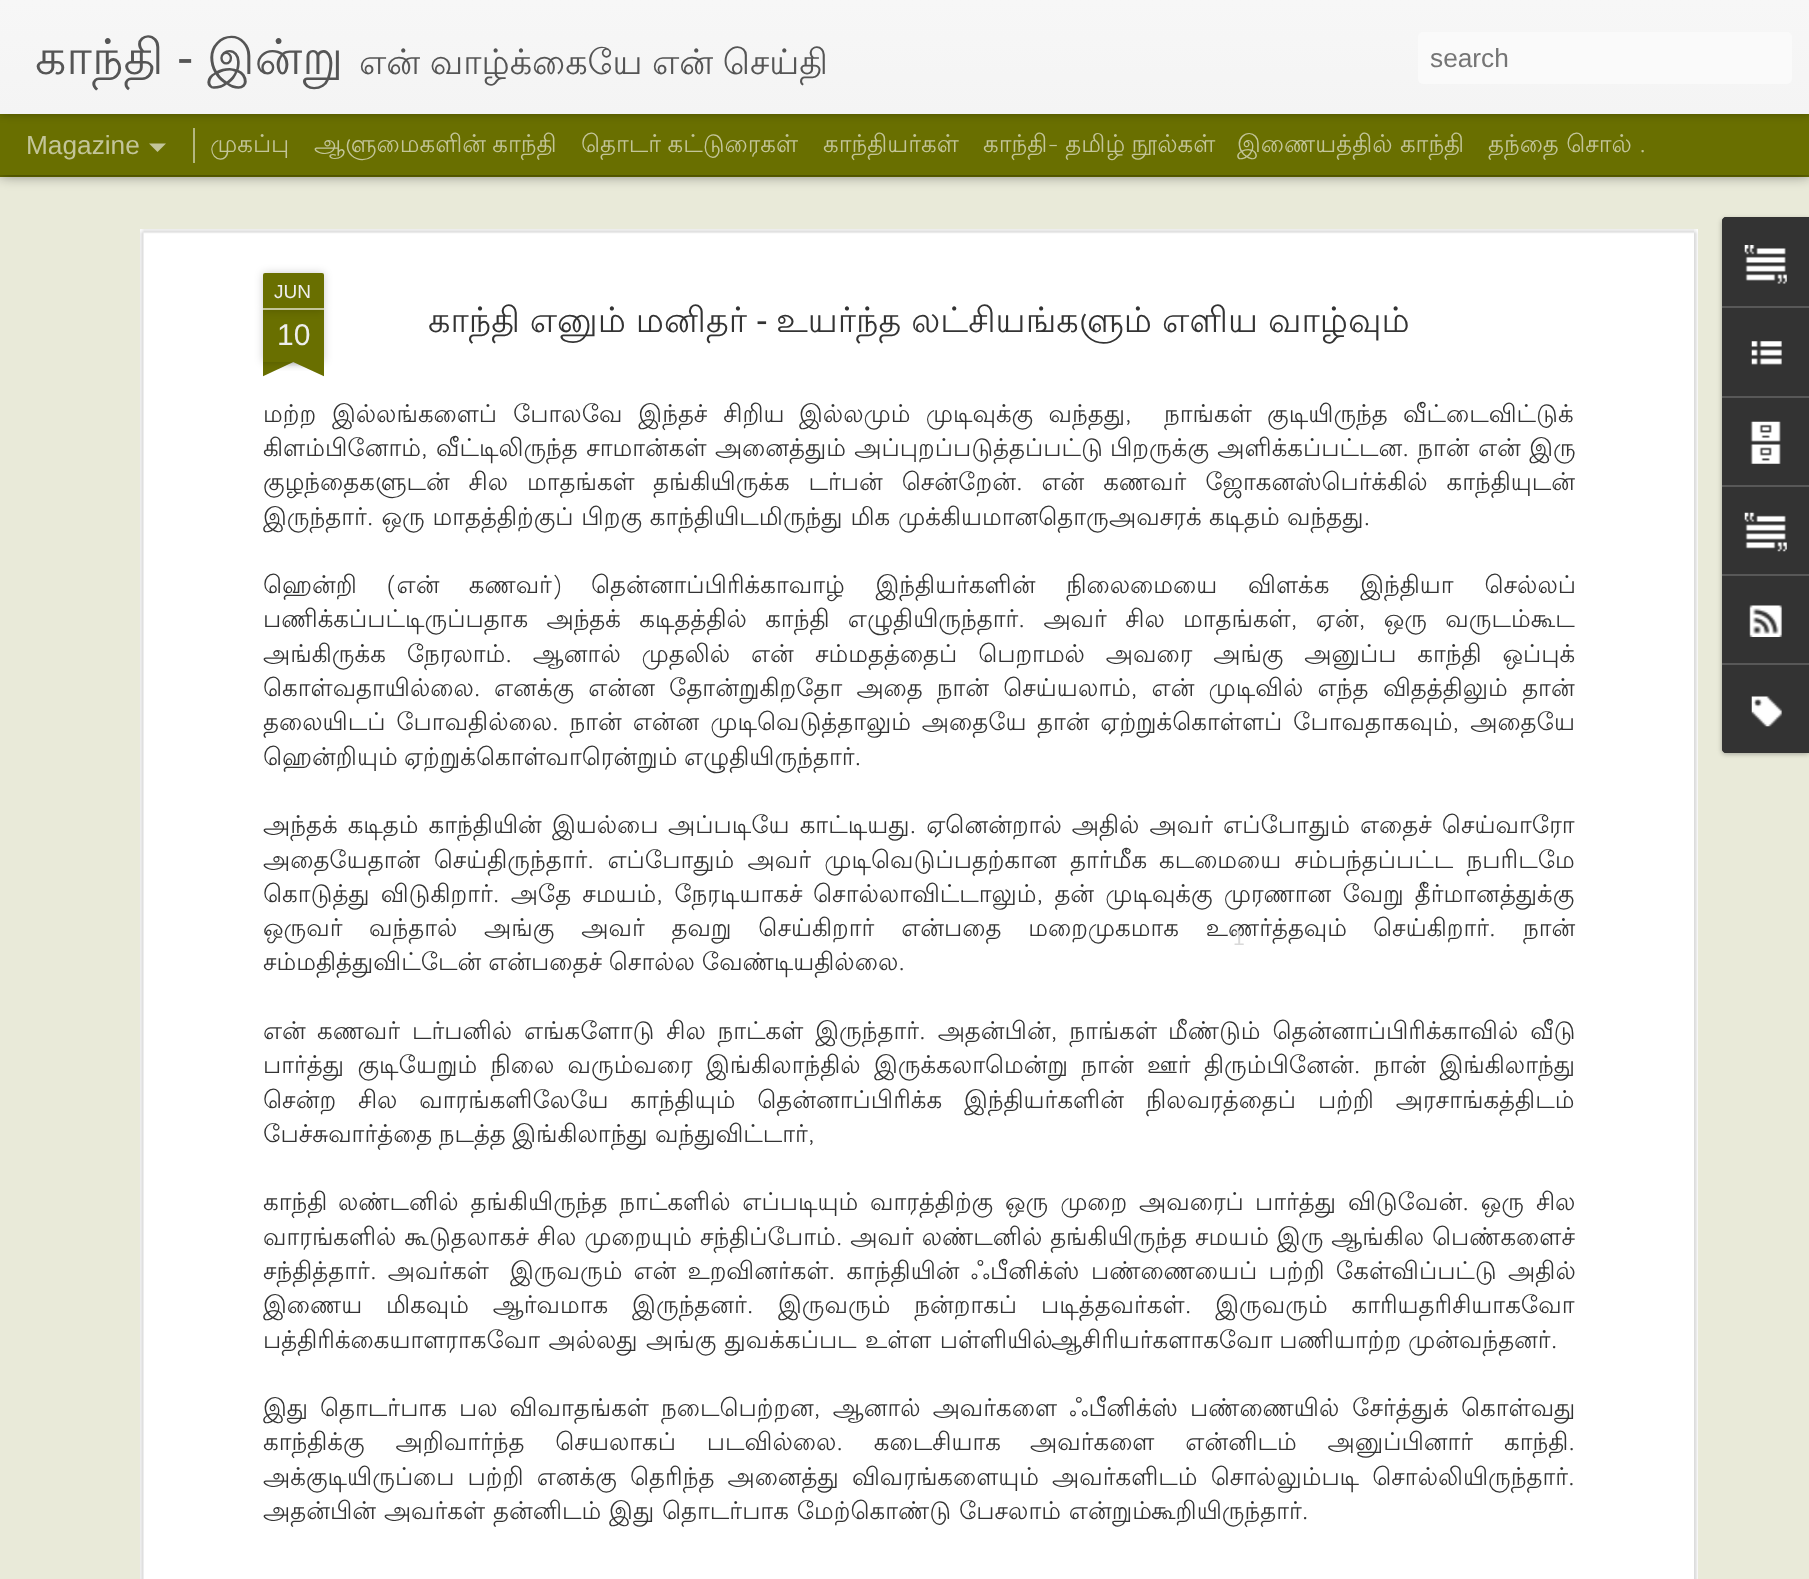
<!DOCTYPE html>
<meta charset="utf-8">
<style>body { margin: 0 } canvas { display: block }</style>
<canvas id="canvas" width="1809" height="1579"></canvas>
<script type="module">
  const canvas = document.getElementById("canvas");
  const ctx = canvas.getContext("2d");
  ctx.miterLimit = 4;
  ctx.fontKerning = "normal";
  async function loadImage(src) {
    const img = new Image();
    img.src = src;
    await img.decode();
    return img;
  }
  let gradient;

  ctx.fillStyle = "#696f00";
  ctx.fillRect(0, 0, 1809, 1579);
  ctx.fillStyle = "#e9ead9";
  ctx.fillRect(0, 177, 1809, 1402);
  ctx.fillStyle = "rgba(0, 0, 0, 0.5)";
  ctx.filter = "blur(7px)";
  ctx.beginPath();
  ctx.rect(0, 114, 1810, 61);
  ctx.fill();
  ctx.filter = "none";
  ctx.fillStyle = "#696f00";
  ctx.fillRect(0, 114, 1809, 61);
  ctx.fillStyle = "#b4b780";
  ctx.fillRect(193, 128, 2, 35);
  ctx.fillStyle = "rgba(0, 0, 0, 0.3)";
  ctx.filter = "blur(4.5px)";
  ctx.beginPath();
  ctx.rect(0, 0, 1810, 114);
  ctx.fill();
  ctx.filter = "none";
  gradient = ctx.createLinearGradient(0, 0, 0, 114);
  gradient.addColorStop(0, "#f7f7f7");
  gradient.addColorStop(1, "#f4f4f4");
  ctx.fillStyle = gradient;
  ctx.fillRect(0, 0, 1809, 114);
  ctx.font = "49px Lohit Tamil";
  ctx.fillStyle = "#555555";
  ctx.fillText("காந்தி", 35, 74);
  ctx.font = "49px Liberation Sans";
  ctx.fillText("-", 177, 74);
  ctx.font = "49px Lohit Tamil";
  ctx.fillText("இன்று", 207, 74);
  ctx.wordSpacing = "-1px";
  ctx.font = "35px Lohit Tamil";
  ctx.fillText("என் வாழ்க்கையே என் செய்தி", 359, 74);
  ctx.fillStyle = "#fafafa";
  ctx.beginPath();
  ctx.roundRect(1418, 32, 374, 52, 5);
  ctx.fill();
  ctx.wordSpacing = "0px";
  ctx.font = "26.25px Liberation Sans";
  ctx.fillStyle = "#757575";
  ctx.fillText("search", 1430, 67);
  ctx.fillStyle = "#c3c599";
  ctx.fillText("Magazine", 26, 154);
  ctx.beginPath();
  ctx.moveTo(149, 143.5);
  ctx.lineTo(166, 143.5);
  ctx.lineTo(157.5, 152);
  ctx.closePath();
  ctx.fill();
  ctx.font = "24.5px Lohit Tamil";
  ctx.fillText("முகப்பு", 210, 152);
  ctx.wordSpacing = "-1px";
  ctx.fillText("ஆளுமைகளின் காந்தி", 314, 152);
  ctx.fillText("தொடர் கட்டுரைகள்", 581, 152);
  ctx.wordSpacing = "0px";
  ctx.fillText("காந்தியர்கள்", 823, 152);
  ctx.wordSpacing = "-1px";
  ctx.fillText("காந்தி- தமிழ் நூல்கள்", 983, 152);
  ctx.wordSpacing = "0px";
  ctx.fillText("இணையத்தில் காந்தி", 1237, 152);
  ctx.fillText("தந்தை சொல் .", 1488, 152);
  ctx.fillStyle = "#ffffff";
  ctx.fillRect(140, 229, 1558, 1350);
  ctx.drawImage(await loadImage("img1.png"), 140, 229, 1558, 1350);
  ctx.fillStyle = "rgba(0, 0, 0, 0.2)";
  ctx.filter = "blur(4.5px)";
  ctx.beginPath();
  ctx.rect(263, 310, 61, 52);
  ctx.fill();
  ctx.filter = "none";
  ctx.fillStyle = "#696f00";
  ctx.fillRect(263, 310, 61, 52);
  ctx.fillStyle = "rgba(0, 0, 0, 0.2)";
  ctx.filter = "blur(4.5px)";
  ctx.beginPath();
  ctx.roundRect(263, 273, 61, 37, 2);
  ctx.fill();
  ctx.filter = "none";
  ctx.fillStyle = "#696f00";
  ctx.beginPath();
  ctx.roundRect(263, 273, 61, 37, [2, 2, 0, 0]);
  ctx.fill();
  ctx.fillStyle = "#c3c599";
  ctx.fillRect(263, 308, 61, 2);
  ctx.font = "19px Liberation Sans";
  ctx.fillStyle = "#eeeeee";
  ctx.fillText("JUN", 274, 298);
  ctx.font = "30px Liberation Sans";
  ctx.fillText("10", 277, 345);
  ctx.save();
  ctx.beginPath();
  ctx.rect(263, 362, 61, 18);
  ctx.clip();
  ctx.fillStyle = "rgba(0, 0, 0, 0.2)";
  ctx.filter = "blur(4.5px)";
  ctx.beginPath();
  ctx.rect(247, 345, 87, 17);
  ctx.fill();
  ctx.filter = "none";
  ctx.restore();
  ctx.save();
  ctx.beginPath();
  ctx.rect(263, 362, 61, 18);
  ctx.clip();
  ctx.fillStyle = "#696f00";
  ctx.beginPath();
  ctx.moveTo(247, 364);
  ctx.lineTo(326, 327);
  ctx.lineTo(334, 343);
  ctx.lineTo(255, 380);
  ctx.closePath();
  ctx.fill();
  ctx.restore();
  ctx.save();
  ctx.beginPath();
  ctx.rect(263, 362, 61, 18);
  ctx.clip();
  ctx.fillStyle = "rgba(0, 0, 0, 0.2)";
  ctx.filter = "blur(4.5px)";
  ctx.beginPath();
  ctx.rect(252, 345, 88, 17);
  ctx.fill();
  ctx.filter = "none";
  ctx.restore();
  ctx.save();
  ctx.beginPath();
  ctx.rect(263, 362, 61, 18);
  ctx.clip();
  ctx.fillStyle = "#696f00";
  ctx.beginPath();
  ctx.moveTo(260, 327);
  ctx.lineTo(339, 364);
  ctx.lineTo(332, 380);
  ctx.lineTo(252, 343);
  ctx.closePath();
  ctx.fill();
  ctx.restore();
  ctx.wordSpacing = "-0.5px";
  ctx.font = "35px Lohit Tamil";
  ctx.fillStyle = "#333333";
  ctx.fillText("காந்தி எனும் மனிதர்", 428, 332);
  ctx.wordSpacing = "0px";
  ctx.font = "35px Liberation Sans";
  ctx.fillText("-", 756, 332);
  ctx.wordSpacing = "-0.5px";
  ctx.font = "35px Lohit Tamil";
  ctx.fillText("உயர்ந்த லட்சியங்களும் எளிய வாழ்வும்", 776, 332);
  ctx.wordSpacing = "8.5px";
  ctx.font = "24.5px Lohit Tamil";
  ctx.fillText("மற்ற இல்லங்களைப் போலவே இந்தச் சிறிய", 263, 422);
  ctx.wordSpacing = "8px";
  ctx.fillText("இல்லமும் முடிவுக்கு வந்தது,", 799, 422);
  ctx.fillText("நாங்கள் குடியிருந்த வீட்டைவிட்டுக்", 1164, 422);
  ctx.wordSpacing = "1px";
  ctx.fillText("கிளம்பினோம், வீட்டிலிருந்த சாமான்கள் அனைத்தும் அப்புறப்படுத்தப்பட்டு", 263, 456);
  ctx.fillText("பிறருக்கு அளிக்கப்பட்டன. நான் என் இரு", 1110, 456);
  ctx.wordSpacing = "11.5px";
  ctx.fillText("குழந்தைகளுடன் சில மாதங்கள்", 263, 490);
  ctx.fillText("தங்கியிருக்க டர்பன் சென்றேன். என் கணவர் ஜோகனஸ்பெர்க்கில் காந்தியுடன்", 653, 490);
  ctx.wordSpacing = "0.5px";
  ctx.fillText("இருந்தார். ஒரு மாதத்திற்குப் பிறகு காந்தியிடமிருந்து மிக முக்கியமானதொரு", 263, 525);
  ctx.wordSpacing = "0px";
  ctx.fillText("அவசரக் கடிதம் வந்தது.", 1109, 525);
  ctx.wordSpacing = "22px";
  ctx.fillText("ஹென்றி (என் கணவர்)", 263, 593);
  ctx.wordSpacing = "23.5px";
  ctx.fillText("தென்னாப்பிரிக்காவாழ் இந்தியர்களின் நிலைமையை விளக்க இந்தியா செல்லப்", 591, 593);
  ctx.wordSpacing = "11px";
  ctx.fillText("பணிக்கப்பட்டிருப்பதாக அந்தக் கடிதத்தில் காந்தி எழுதியிருந்தார். அவர் சில", 263, 627);
  ctx.fillText("மாதங்கள், ஏன், ஒரு வருடம்கூட", 1183, 627);
  ctx.wordSpacing = "13.5px";
  ctx.fillText("அங்கிருக்க நேரலாம். ஆனால் முதலில் என்", 263, 662);
  ctx.fillText("சம்மதத்தைப் பெறாமல் அவரை அங்கு அனுப்ப காந்தி ஒப்புக்", 815, 662);
  ctx.wordSpacing = "0px";
  ctx.fillText("கொள்வதாயில்லை.", 263, 696);
  ctx.wordSpacing = "6.75px";
  ctx.fillText("எனக்கு என்ன தோன்றுகிறதோ அதை நான் செய்யலாம், என் முடிவில் எந்த", 494, 696);
  ctx.wordSpacing = "7px";
  ctx.fillText("விதத்திலும் தான்", 1383, 696);
  ctx.wordSpacing = "3.5px";
  ctx.fillText("தலையிடப் போவதில்லை. நான் என்ன முடிவெடுத்தாலும் அதையே", 263, 730);
  ctx.fillText("தான் ஏற்றுக்கொள்ளப் போவதாகவும், அதையே", 1037, 730);
  ctx.wordSpacing = "-1px";
  ctx.fillText("ஹென்றியும் ஏற்றுக்கொள்வாரென்றும்", 263, 765);
  ctx.wordSpacing = "0px";
  ctx.fillText("எழுதியிருந்தார்.", 684, 765);
  ctx.wordSpacing = "2.75px";
  ctx.fillText("அந்தக் கடிதம் காந்தியின் இயல்பை", 263, 833);
  ctx.fillText("அப்படியே காட்டியது. ஏனென்றால் அதில் அவர் எப்போதும் எதைச் செய்வாரோ", 668, 833);
  ctx.wordSpacing = "6px";
  ctx.fillText("அதையேதான் செய்திருந்தார். எப்போதும் அவர் முடிவெடுப்பதற்கான தார்மீக", 263, 868);
  ctx.fillText("கடமையை சம்பந்தப்பட்ட நபரிடமே", 1159, 868);
  ctx.wordSpacing = "3.75px";
  ctx.fillText("கொடுத்து விடுகிறார். அதே சமயம், நேரடியாகச்", 263, 902);
  ctx.fillText("சொல்லாவிட்டாலும், தன் முடிவுக்கு முரணான வேறு தீர்மானத்துக்கு", 813, 902);
  ctx.wordSpacing = "0px";
  ctx.fillText("ஒருவர்", 263, 936);
  ctx.wordSpacing = "19.5px";
  ctx.fillText("வந்தால் அங்கு அவர் தவறு செய்கிறார் என்பதை மறைமுகமாக உணர்த்தவும்", 369, 936);
  ctx.wordSpacing = "20px";
  ctx.fillText("செய்கிறார். நான்", 1373, 936);
  ctx.wordSpacing = "-0.5px";
  ctx.fillText("சம்மதித்துவிட்டேன் என்பதைச் சொல்ல வேண்டியதில்லை.", 263, 970);
  ctx.wordSpacing = "0px";
  ctx.fillText("என்", 263, 1039);
  ctx.wordSpacing = "4.5px";
  ctx.fillText("கணவர் டர்பனில் எங்களோடு சில நாட்கள் இருந்தார். அதன்பின், நாங்கள்", 317, 1039);
  ctx.fillText("மீண்டும் தென்னாப்பிரிக்காவில் வீடு", 1168, 1039);
  ctx.wordSpacing = "6px";
  ctx.fillText("பார்த்து குடியேறும் நிலை வரும்வரை", 263, 1073);
  ctx.fillText("இங்கிலாந்தில் இருக்கலாமென்று நான் ஊர் திரும்பினேன். நான் இங்கிலாந்து", 706, 1073);
  ctx.wordSpacing = "14.5px";
  ctx.fillText("சென்ற சில வாரங்களிலேயே காந்தியும் தென்னாப்பிரிக்க இந்தியர்களின்", 263, 1108);
  ctx.fillText("நிலவரத்தைப் பற்றி அரசாங்கத்திடம்", 1146, 1108);
  ctx.wordSpacing = "-1px";
  ctx.fillText("பேச்சுவார்த்தை நடத்த இங்கிலாந்து", 263, 1142);
  ctx.wordSpacing = "0px";
  ctx.fillText("வந்துவிட்டார்,", 655, 1142);
  ctx.fillText("காந்தி", 263, 1210);
  ctx.wordSpacing = "4.5px";
  ctx.fillText("லண்டனில் தங்கியிருந்த நாட்களில் எப்படியும் வாரத்திற்கு ஒரு முறை அவரைப்", 338, 1210);
  ctx.fillText("பார்த்து விடுவேன். ஒரு சில", 1255, 1210);
  ctx.wordSpacing = "0.5px";
  ctx.fillText("வாரங்களில் கூடுதலாகச் சில முறையும்", 263, 1245);
  ctx.fillText("சந்திப்போம். அவர் லண்டனில் தங்கியிருந்த சமயம் இரு ஆங்கில பெண்களைச்", 700, 1245);
  ctx.wordSpacing = "3.75px";
  ctx.fillText("சந்தித்தார். அவர்கள்", 263, 1279);
  ctx.fillText("இருவரும் என் உறவினர்கள். காந்தியின் ஃபீனிக்ஸ்", 510, 1279);
  ctx.wordSpacing = "4px";
  ctx.fillText("பண்ணையைப் பற்றி கேள்விப்பட்டு அதில்", 1091, 1279);
  ctx.wordSpacing = "16.5px";
  ctx.fillText("இணைய மிகவும் ஆர்வமாக இருந்தனர்.", 263, 1313);
  ctx.fillText("இருவரும் நன்றாகப் படித்தவர்கள். இருவரும் காரியதரிசியாகவோ", 778, 1313);
  ctx.wordSpacing = "1px";
  ctx.fillText("பத்திரிக்கையாளராகவோ அல்லது அங்கு துவக்கப்பட உள்ள பள்ளியில்", 263, 1348);
  ctx.wordSpacing = "-0.5px";
  ctx.fillText("ஆசிரியர்களாகவோ பணியாற்ற முன்வந்தனர்.", 1051, 1348);
  ctx.wordSpacing = "0px";
  ctx.fillText("இது", 263, 1416);
  ctx.wordSpacing = "4.75px";
  ctx.fillText("தொடர்பாக பல விவாதங்கள் நடைபெற்றன, ஆனால் அவர்களை ஃபீனிக்ஸ் பண்ணையில்", 320, 1416);
  ctx.wordSpacing = "5px";
  ctx.fillText("சேர்த்துக் கொள்வது", 1352, 1416);
  ctx.wordSpacing = "23.5px";
  ctx.fillText("காந்திக்கு அறிவார்ந்த செயலாகப் படவில்லை. கடைசியாக", 263, 1450);
  ctx.fillText("அவர்களை என்னிடம் அனுப்பினார் காந்தி.", 1030, 1450);
  ctx.wordSpacing = "5.75px";
  ctx.fillText("அக்குடியிருப்பை பற்றி எனக்கு", 263, 1485);
  ctx.fillText("தெரிந்த அனைத்து விவரங்களையும் அவர்களிடம் சொல்லும்படி சொல்லியிருந்தார்.", 630, 1485);
  ctx.wordSpacing = "0.5px";
  ctx.fillText("அதன்பின் அவர்கள் தன்னிடம் இது தொடர்பாக மேற்கொண்டு பேசலாம் என்றும்", 263, 1519);
  ctx.wordSpacing = "0px";
  ctx.fillText("கூறியிருந்தார்.", 1151, 1519);
  ctx.fillStyle = "rgba(0, 0, 0, 0.3)";
  ctx.filter = "blur(2.5px)";
  ctx.beginPath();
  ctx.roundRect(1722, 219, 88, 535, 4);
  ctx.fill();
  ctx.filter = "none";
  ctx.fillStyle = "#333333";
  ctx.beginPath();
  ctx.moveTo(1726, 217);
  ctx.lineTo(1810, 217);
  ctx.lineTo(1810, 753);
  ctx.lineTo(1726, 753);
  ctx.bezierCurveTo(1724, 753, 1722, 751, 1722, 749);
  ctx.lineTo(1722, 221);
  ctx.bezierCurveTo(1722, 219, 1724, 217, 1726, 217);
  ctx.closePath();
  ctx.fill();
  ctx.beginPath();
  ctx.moveTo(1726, 217);
  ctx.lineTo(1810, 217);
  ctx.lineTo(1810, 306);
  ctx.lineTo(1722, 306);
  ctx.lineTo(1722, 221);
  ctx.bezierCurveTo(1722, 219, 1724, 217, 1726, 217);
  ctx.closePath();
  ctx.fill();
  ctx.drawImage(await loadImage("img2.png"), 1744, 245, 43, 39);
  ctx.fillStyle = "#585858";
  ctx.fillRect(1722, 306, 87, 2);
  ctx.drawImage(await loadImage("img3.png"), 1751, 341, 31, 24);
  ctx.fillRect(1722, 396, 87, 2);
  ctx.drawImage(await loadImage("img4.png"), 1750, 421, 31, 43);
  ctx.fillRect(1722, 485, 87, 2);
  ctx.drawImage(await loadImage("img5.png"), 1744, 512, 43, 40);
  ctx.fillRect(1722, 574, 87, 2);
  ctx.drawImage(await loadImage("img6.png"), 1749, 605, 33, 32);
  ctx.fillStyle = "#333333";
  ctx.beginPath();
  ctx.moveTo(1722, 663);
  ctx.lineTo(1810, 663);
  ctx.lineTo(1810, 753);
  ctx.lineTo(1726, 753);
  ctx.bezierCurveTo(1724, 753, 1722, 751, 1722, 749);
  ctx.closePath();
  ctx.fill();
  ctx.fillStyle = "#585858";
  ctx.fillRect(1722, 663, 87, 2);
  ctx.drawImage(await loadImage("img7.png"), 1751, 696, 31, 31);
  ctx.font = "21px Liberation Sans";
  ctx.fillStyle = "#d9d9d9";
  ctx.fillText("1", 1233, 945);
</script>
